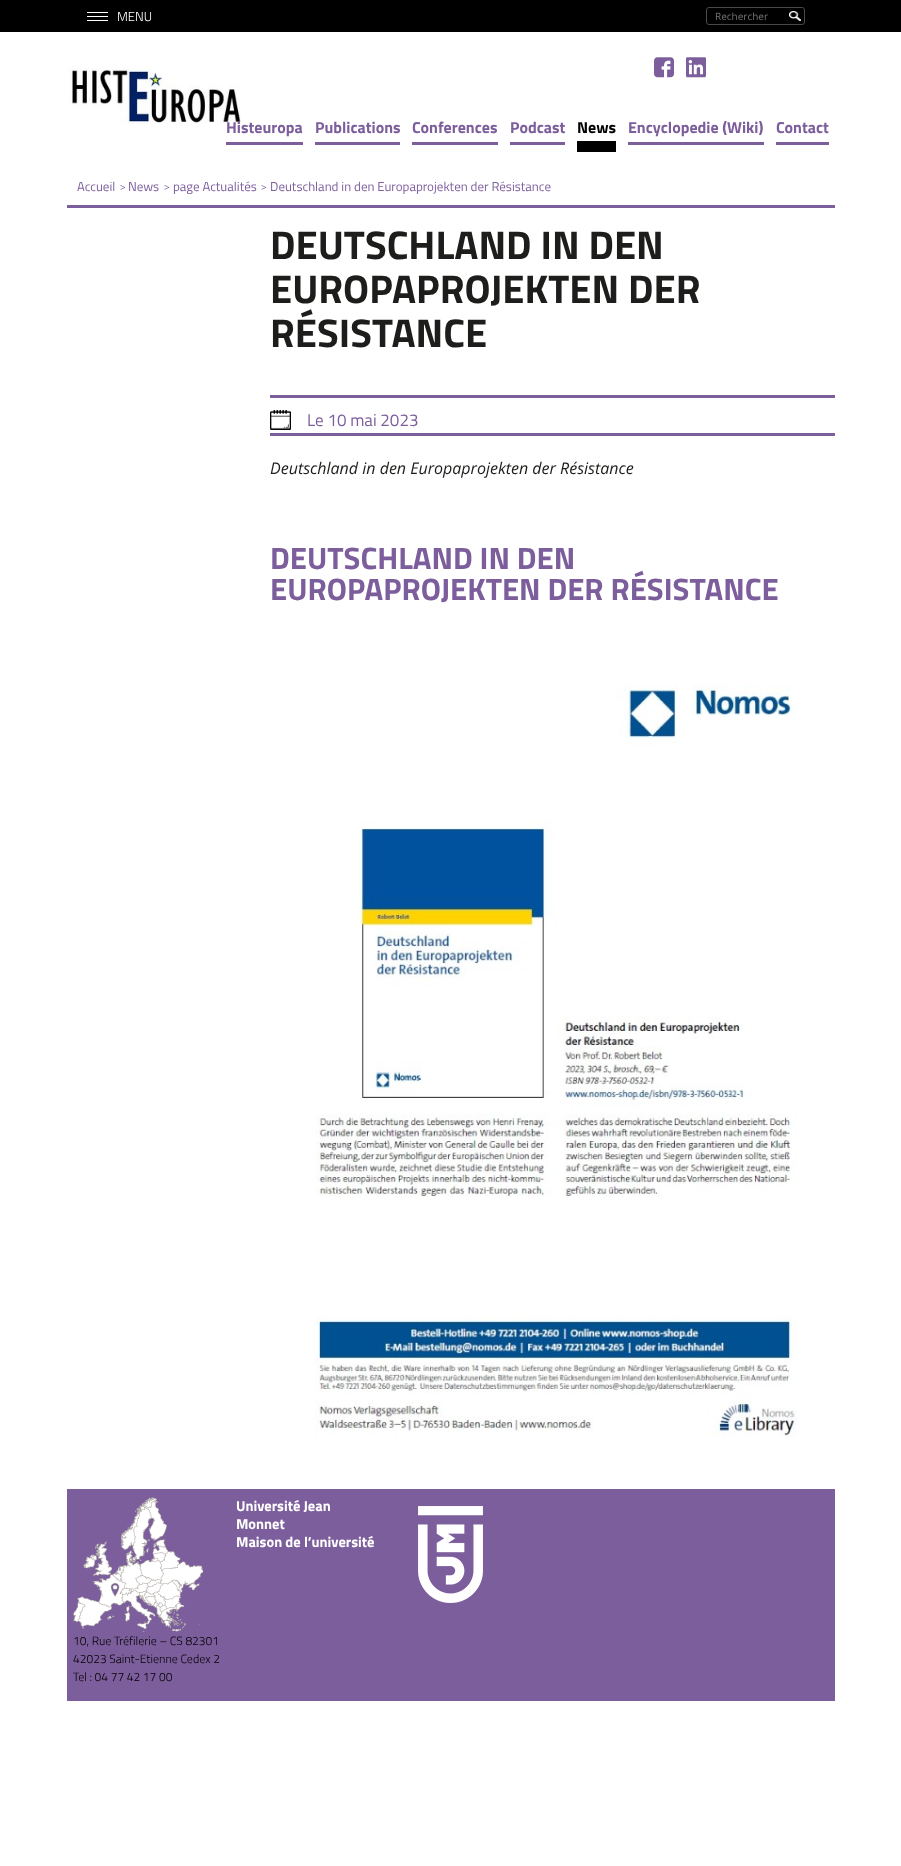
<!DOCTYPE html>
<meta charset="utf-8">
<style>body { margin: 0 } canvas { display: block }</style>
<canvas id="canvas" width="901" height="1866"></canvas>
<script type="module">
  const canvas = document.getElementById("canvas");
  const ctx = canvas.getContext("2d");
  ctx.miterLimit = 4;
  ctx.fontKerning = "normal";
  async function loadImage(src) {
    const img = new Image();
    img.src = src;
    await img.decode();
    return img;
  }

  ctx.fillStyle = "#ffffff";
  ctx.fillRect(0, 0, 901, 1866);
  ctx.fillStyle = "#000000";
  ctx.fillRect(0, 0, 901, 32);
  ctx.drawImage(await loadImage("img1.png"), 87, 12, 21, 9);
  ctx.font = "300 13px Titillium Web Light";
  ctx.fillStyle = "#ffffff";
  ctx.fillText("MENU", 117, 21);
  ctx.beginPath();
  ctx.roundRect(706.5, 7.5, 98, 17, 2.5);
  ctx.strokeStyle = "#494949";
  ctx.stroke();
  ctx.font = "10px Open Sans";
  ctx.fillStyle = "#757575";
  ctx.fillText("Rechercher", 715, 20);
  ctx.drawImage(await loadImage("img2.png"), 789, 11, 12, 10);
  ctx.drawImage(await loadImage("img3.png"), 68, 67, 173, 57);
  ctx.drawImage(await loadImage("img4.png"), 654, 57, 20, 21);
  ctx.drawImage(await loadImage("img5.png"), 686, 57, 20, 21);
  ctx.font = "bold 16px Titillium Web";
  ctx.fillStyle = "#7c5e9c";
  ctx.fillText("Histeuropa", 226, 133);
  ctx.fillRect(226, 142, 77, 3);
  ctx.fillText("Publications", 315, 133);
  ctx.fillRect(315, 142, 85, 3);
  ctx.fillText("Conferences", 412, 133);
  ctx.fillRect(412, 142, 86, 3);
  ctx.fillText("Podcast", 510, 133);
  ctx.fillRect(510, 142, 55, 3);
  ctx.fillStyle = "#000000";
  ctx.fillText("News", 577, 133);
  ctx.fillRect(577, 141, 39, 11);
  ctx.fillStyle = "#7c5e9c";
  ctx.fillText("Encyclopedie (Wiki)", 628, 133);
  ctx.fillRect(628, 142, 136, 3);
  ctx.fillText("Contact", 776, 133);
  ctx.fillRect(776, 142, 53, 3);
  ctx.fillRect(67, 205, 768, 3);
  ctx.font = "13px Titillium Web";
  ctx.fillText("Accueil", 77, 191);
  ctx.font = "10px Open Sans";
  ctx.fillText(">", 120, 191);
  ctx.font = "13px Titillium Web";
  ctx.fillText("News", 128, 191);
  ctx.font = "10px Open Sans";
  ctx.fillText(">", 164, 191);
  ctx.font = "13px Titillium Web";
  ctx.fillText("page Actualités", 173, 191);
  ctx.font = "10px Open Sans";
  ctx.fillText(">", 261, 191);
  ctx.font = "13px Titillium Web";
  ctx.fillText("Deutschland in den Europaprojekten der Résistance", 270, 191);
  ctx.font = "bold 40px Titillium Web";
  ctx.fillStyle = "#1d1d1b";
  ctx.fillText("DEUTSCHLAND IN DEN", 270, 259);
  ctx.fillText("EUROPAPROJEKTEN DER", 270, 303);
  ctx.fillText("RÉSISTANCE", 270, 347);
  ctx.fillStyle = "#7c5e9c";
  ctx.fillRect(270, 395, 565, 3);
  ctx.fillRect(270, 433, 565, 3);
  ctx.drawImage(await loadImage("img6.png"), 270, 410, 21, 20);
  ctx.font = "17px Titillium Web";
  ctx.fillText("Le 10 mai 2023", 307, 426);
  ctx.font = "italic 16px Open Sans";
  ctx.fillStyle = "#1d1d1b";
  ctx.fillText("Deutschland in den Europaprojekten der Résistance", 270, 474);
  ctx.font = "bold 31px Titillium Web";
  ctx.fillStyle = "#7c5e9c";
  ctx.fillText("DEUTSCHLAND IN DEN", 270, 569);
  ctx.fillText("EUROPAPROJEKTEN DER RÉSISTANCE", 270, 600);
  ctx.drawImage(await loadImage("img7.png"), 315, 684, 482, 753);
  ctx.fillRect(67, 1489, 768, 212);
  ctx.drawImage(await loadImage("img8.png"), 73, 1497, 130, 135);
  ctx.font = "bold 14.5px Titillium Web";
  ctx.fillStyle = "#ffffff";
  ctx.fillText("Université Jean", 236, 1511);
  ctx.fillText("Monnet", 236, 1529);
  ctx.fillText("Maison de l’université", 236, 1547);
  ctx.font = "300 12px Titillium Web Light";
  ctx.fillStyle = "#000000";
  ctx.fillText("10, Rue Tréfilerie – CS 82301", 73, 1645);
  ctx.fillText("42023 Saint-Etienne Cedex 2", 73, 1663);
  ctx.fillText("Tel : 04 77 42 17 00", 73, 1681);
  ctx.drawImage(await loadImage("img9.png"), 418, 1506, 65, 97);
</script>
